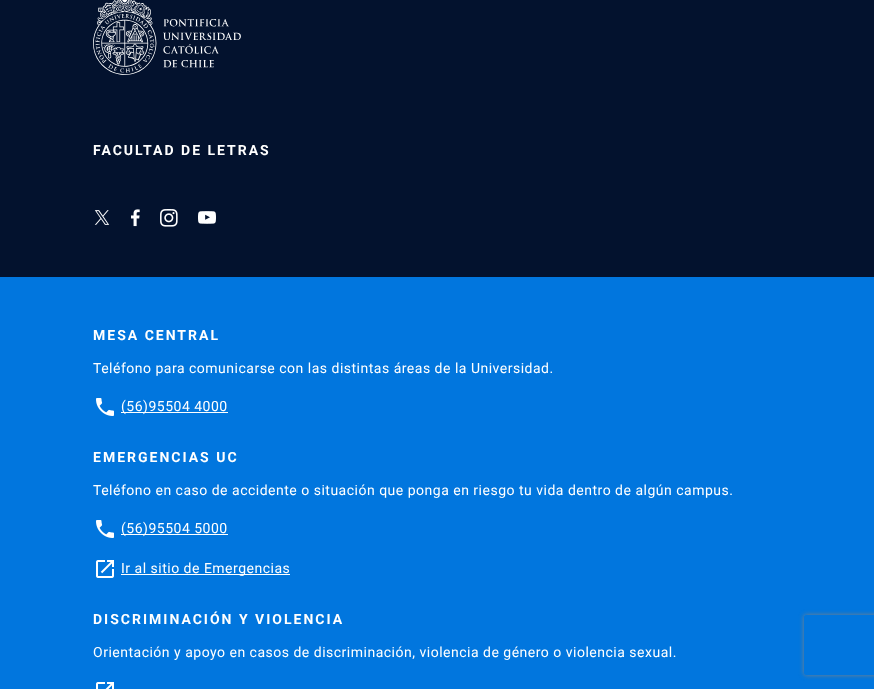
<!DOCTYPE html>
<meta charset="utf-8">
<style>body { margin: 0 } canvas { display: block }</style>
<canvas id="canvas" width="874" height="689"></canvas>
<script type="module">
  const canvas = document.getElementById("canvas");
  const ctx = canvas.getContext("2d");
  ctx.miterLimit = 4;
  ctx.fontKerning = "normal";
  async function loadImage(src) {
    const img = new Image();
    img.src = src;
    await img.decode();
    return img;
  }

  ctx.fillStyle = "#03122e";
  ctx.fillRect(0, 0, 874, 689);
  ctx.drawImage(await loadImage("img1.png"), 93, 0, 148, 75);
  ctx.letterSpacing = "2px";
  ctx.font = "bold 14px Roboto";
  ctx.fillStyle = "#ffffff";
  ctx.fillText("FACULTAD DE LETRAS", 93, 155);
  ctx.drawImage(await loadImage("img2.png"), 94, 210, 16, 15);
  ctx.drawImage(await loadImage("img3.png"), 131, 209, 9, 18);
  ctx.drawImage(await loadImage("img4.png"), 160, 209, 18, 18);
  ctx.drawImage(await loadImage("img5.png"), 198, 211, 18, 13);
  ctx.fillStyle = "#0176de";
  ctx.fillRect(0, 277, 874, 412);
  ctx.fillStyle = "#ffffff";
  ctx.fillText("MESA CENTRAL", 93, 340);
  ctx.letterSpacing = "0.5px";
  ctx.font = "14px Roboto";
  ctx.fillText("Teléfono para comunicarse con las distintas áreas de la Universidad.", 93, 373);
  ctx.drawImage(await loadImage("img6.png"), 96, 398, 18, 18);
  ctx.fillRect(121, 412, 107, 1);
  ctx.fillText("(56)95504 4000", 121, 411);
  ctx.letterSpacing = "2px";
  ctx.font = "bold 14px Roboto";
  ctx.fillText("EMERGENCIAS UC", 93, 462);
  ctx.letterSpacing = "0.5px";
  ctx.font = "14px Roboto";
  ctx.fillText("Teléfono en caso de accidente o situación que ponga en riesgo tu vida dentro de algún campus.", 93, 495);
  ctx.drawImage(await loadImage("img6.png"), 96, 520, 18, 18);
  ctx.fillRect(121, 534, 107, 1);
  ctx.fillText("(56)95504 5000", 121, 533);
  ctx.drawImage(await loadImage("img7.png"), 96, 560, 18, 18);
  ctx.fillRect(121, 574, 169, 1);
  ctx.fillText("Ir al sitio de Emergencias", 121, 573);
  ctx.letterSpacing = "2px";
  ctx.font = "bold 14px Roboto";
  ctx.fillText("DISCRIMINACIÓN Y VIOLENCIA", 93, 624);
  ctx.letterSpacing = "0.5px";
  ctx.font = "14px Roboto";
  ctx.fillText("Orientación y apoyo en casos de discriminación, violencia de género o violencia sexual.", 93, 657);
  ctx.drawImage(await loadImage("img8.png"), 96, 682, 18, 7);
  ctx.save();
  ctx.beginPath();
  ctx.moveTo(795, 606);
  ctx.lineTo(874, 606);
  ctx.lineTo(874, 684);
  ctx.lineTo(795, 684);
  ctx.closePath();
  ctx.moveTo(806, 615);
  ctx.lineTo(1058, 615);
  ctx.bezierCurveTo(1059, 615, 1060, 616, 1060, 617);
  ctx.lineTo(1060, 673);
  ctx.bezierCurveTo(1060, 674, 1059, 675, 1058, 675);
  ctx.lineTo(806, 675);
  ctx.bezierCurveTo(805, 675, 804, 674, 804, 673);
  ctx.lineTo(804, 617);
  ctx.bezierCurveTo(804, 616, 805, 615, 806, 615);
  ctx.closePath();
  ctx.clip("evenodd");
  ctx.fillStyle = "#808080";
  ctx.filter = "blur(2.5px)";
  ctx.beginPath();
  ctx.roundRect(804, 615, 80, 60, 2);
  ctx.fill();
  ctx.filter = "none";
  ctx.restore();
</script>
